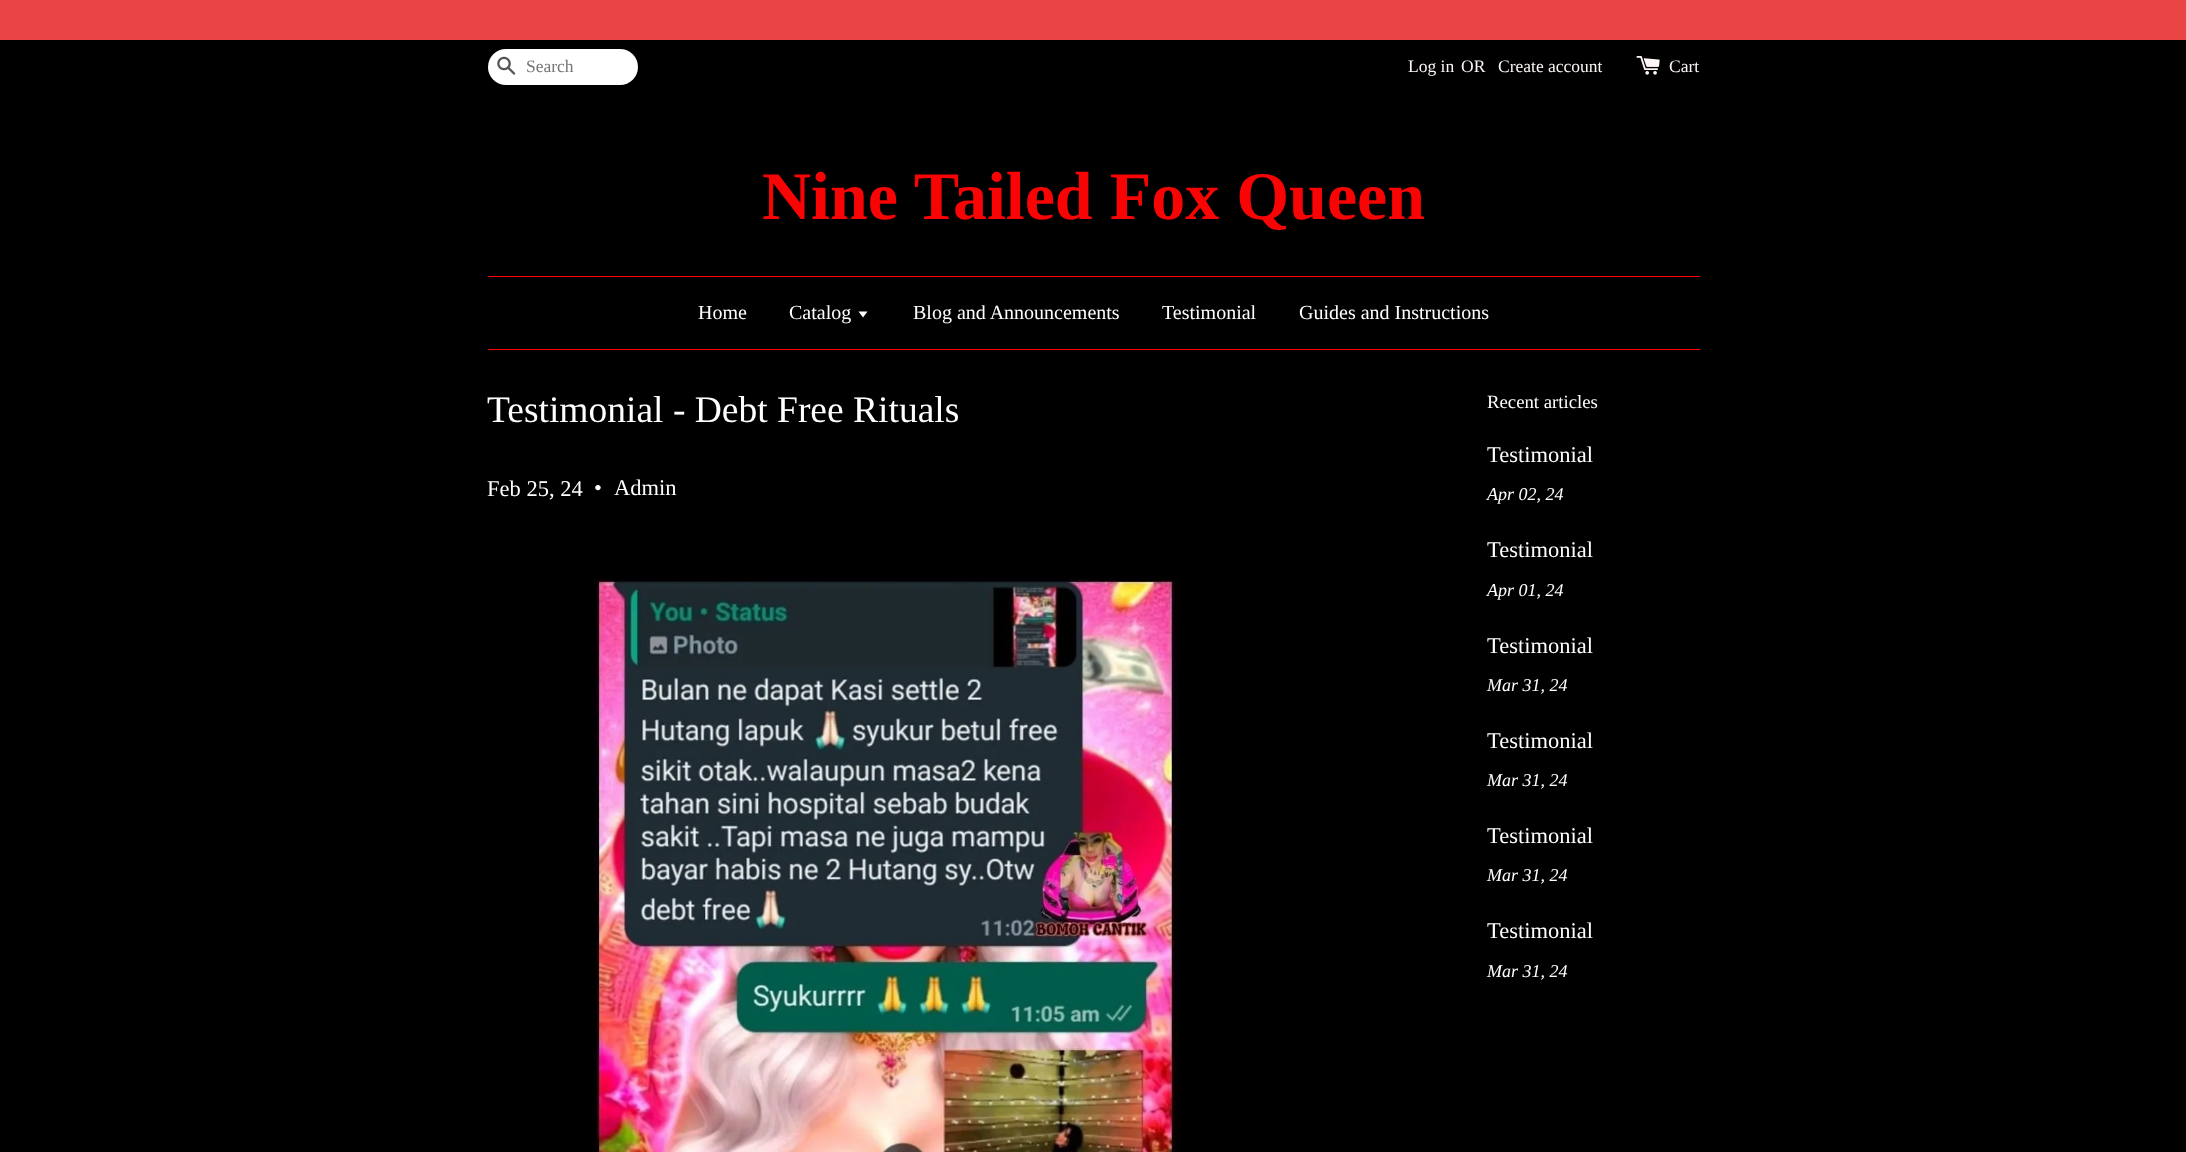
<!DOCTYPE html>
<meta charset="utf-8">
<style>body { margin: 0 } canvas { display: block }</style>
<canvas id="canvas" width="2186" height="1152"></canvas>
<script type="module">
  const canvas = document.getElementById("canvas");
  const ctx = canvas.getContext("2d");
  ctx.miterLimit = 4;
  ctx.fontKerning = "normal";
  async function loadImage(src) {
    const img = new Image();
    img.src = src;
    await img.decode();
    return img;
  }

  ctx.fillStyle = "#000000";
  ctx.fillRect(0, 0, 2186, 1152);
  ctx.fillStyle = "#e94545";
  ctx.fillRect(0, 0, 2186, 40);
  ctx.fillStyle = "#ffffff";
  ctx.beginPath();
  ctx.roundRect(488, 49, 150, 36, 18);
  ctx.fill();
  ctx.drawImage(await loadImage("img1.png"), 497, 56, 19, 19);
  ctx.font = "17.5px Liberation Serif";
  ctx.fillStyle = "#757575";
  ctx.fillText("Search", 526, 72);
  ctx.fillStyle = "#fef5f5";
  ctx.fillText("Log in", 1408, 72);
  ctx.fillText("OR", 1461, 72);
  ctx.fillText("Create account", 1498, 72);
  ctx.drawImage(await loadImage("img2.png"), 1636, 56, 24, 19);
  ctx.fillText("Cart", 1669, 72);
  ctx.font = "bold 68px Liberation Serif";
  ctx.fillStyle = "#f80404";
  ctx.fillText("Nine Tailed Fox Queen", 762, 219);
  ctx.fillStyle = "#ff0000";
  ctx.fillRect(488, 276, 1212, 1);
  ctx.fillRect(488, 349, 1212, 1);
  ctx.font = "20px Liberation Serif";
  ctx.fillStyle = "#ffffff";
  ctx.fillText("Home", 698, 319);
  ctx.fillText("Catalog", 789, 319);
  ctx.beginPath();
  ctx.moveTo(858.5, 311.5);
  ctx.lineTo(863, 317.5);
  ctx.lineTo(867.5, 311.5);
  ctx.closePath();
  ctx.fill();
  ctx.fillText("Blog and Announcements", 913, 319);
  ctx.fillText("Testimonial", 1162, 319);
  ctx.fillText("Guides and Instructions", 1299, 319);
  ctx.font = "37.5px Liberation Serif";
  ctx.fillText("Testimonial - Debt Free Rituals", 487, 422);
  ctx.font = "22.5px Liberation Serif";
  ctx.fillText("Feb 25, 24", 487, 496);
  ctx.fillText("•", 594, 495);
  ctx.fillText("Admin", 614, 495);
  ctx.drawImage(await loadImage("img3.png"), 593, 576, 587, 576);
  ctx.font = "18.75px Liberation Serif";
  ctx.fillText("Recent articles", 1487, 408);
  ctx.font = "22.5px Liberation Serif";
  ctx.fillText("Testimonial", 1487, 462);
  ctx.font = "italic 18px Liberation Serif";
  ctx.fillText("Apr 02, 24", 1487, 500);
  ctx.font = "22.5px Liberation Serif";
  ctx.fillText("Testimonial", 1487, 557);
  ctx.font = "italic 18px Liberation Serif";
  ctx.fillText("Apr 01, 24", 1487, 596);
  ctx.font = "22.5px Liberation Serif";
  ctx.fillText("Testimonial", 1487, 653);
  ctx.font = "italic 18px Liberation Serif";
  ctx.fillText("Mar 31, 24", 1487, 691);
  ctx.font = "22.5px Liberation Serif";
  ctx.fillText("Testimonial", 1487, 748);
  ctx.font = "italic 18px Liberation Serif";
  ctx.fillText("Mar 31, 24", 1487, 786);
  ctx.font = "22.5px Liberation Serif";
  ctx.fillText("Testimonial", 1487, 843);
  ctx.font = "italic 18px Liberation Serif";
  ctx.fillText("Mar 31, 24", 1487, 881);
  ctx.font = "22.5px Liberation Serif";
  ctx.fillText("Testimonial", 1487, 938);
  ctx.font = "italic 18px Liberation Serif";
  ctx.fillText("Mar 31, 24", 1487, 977);
</script>
